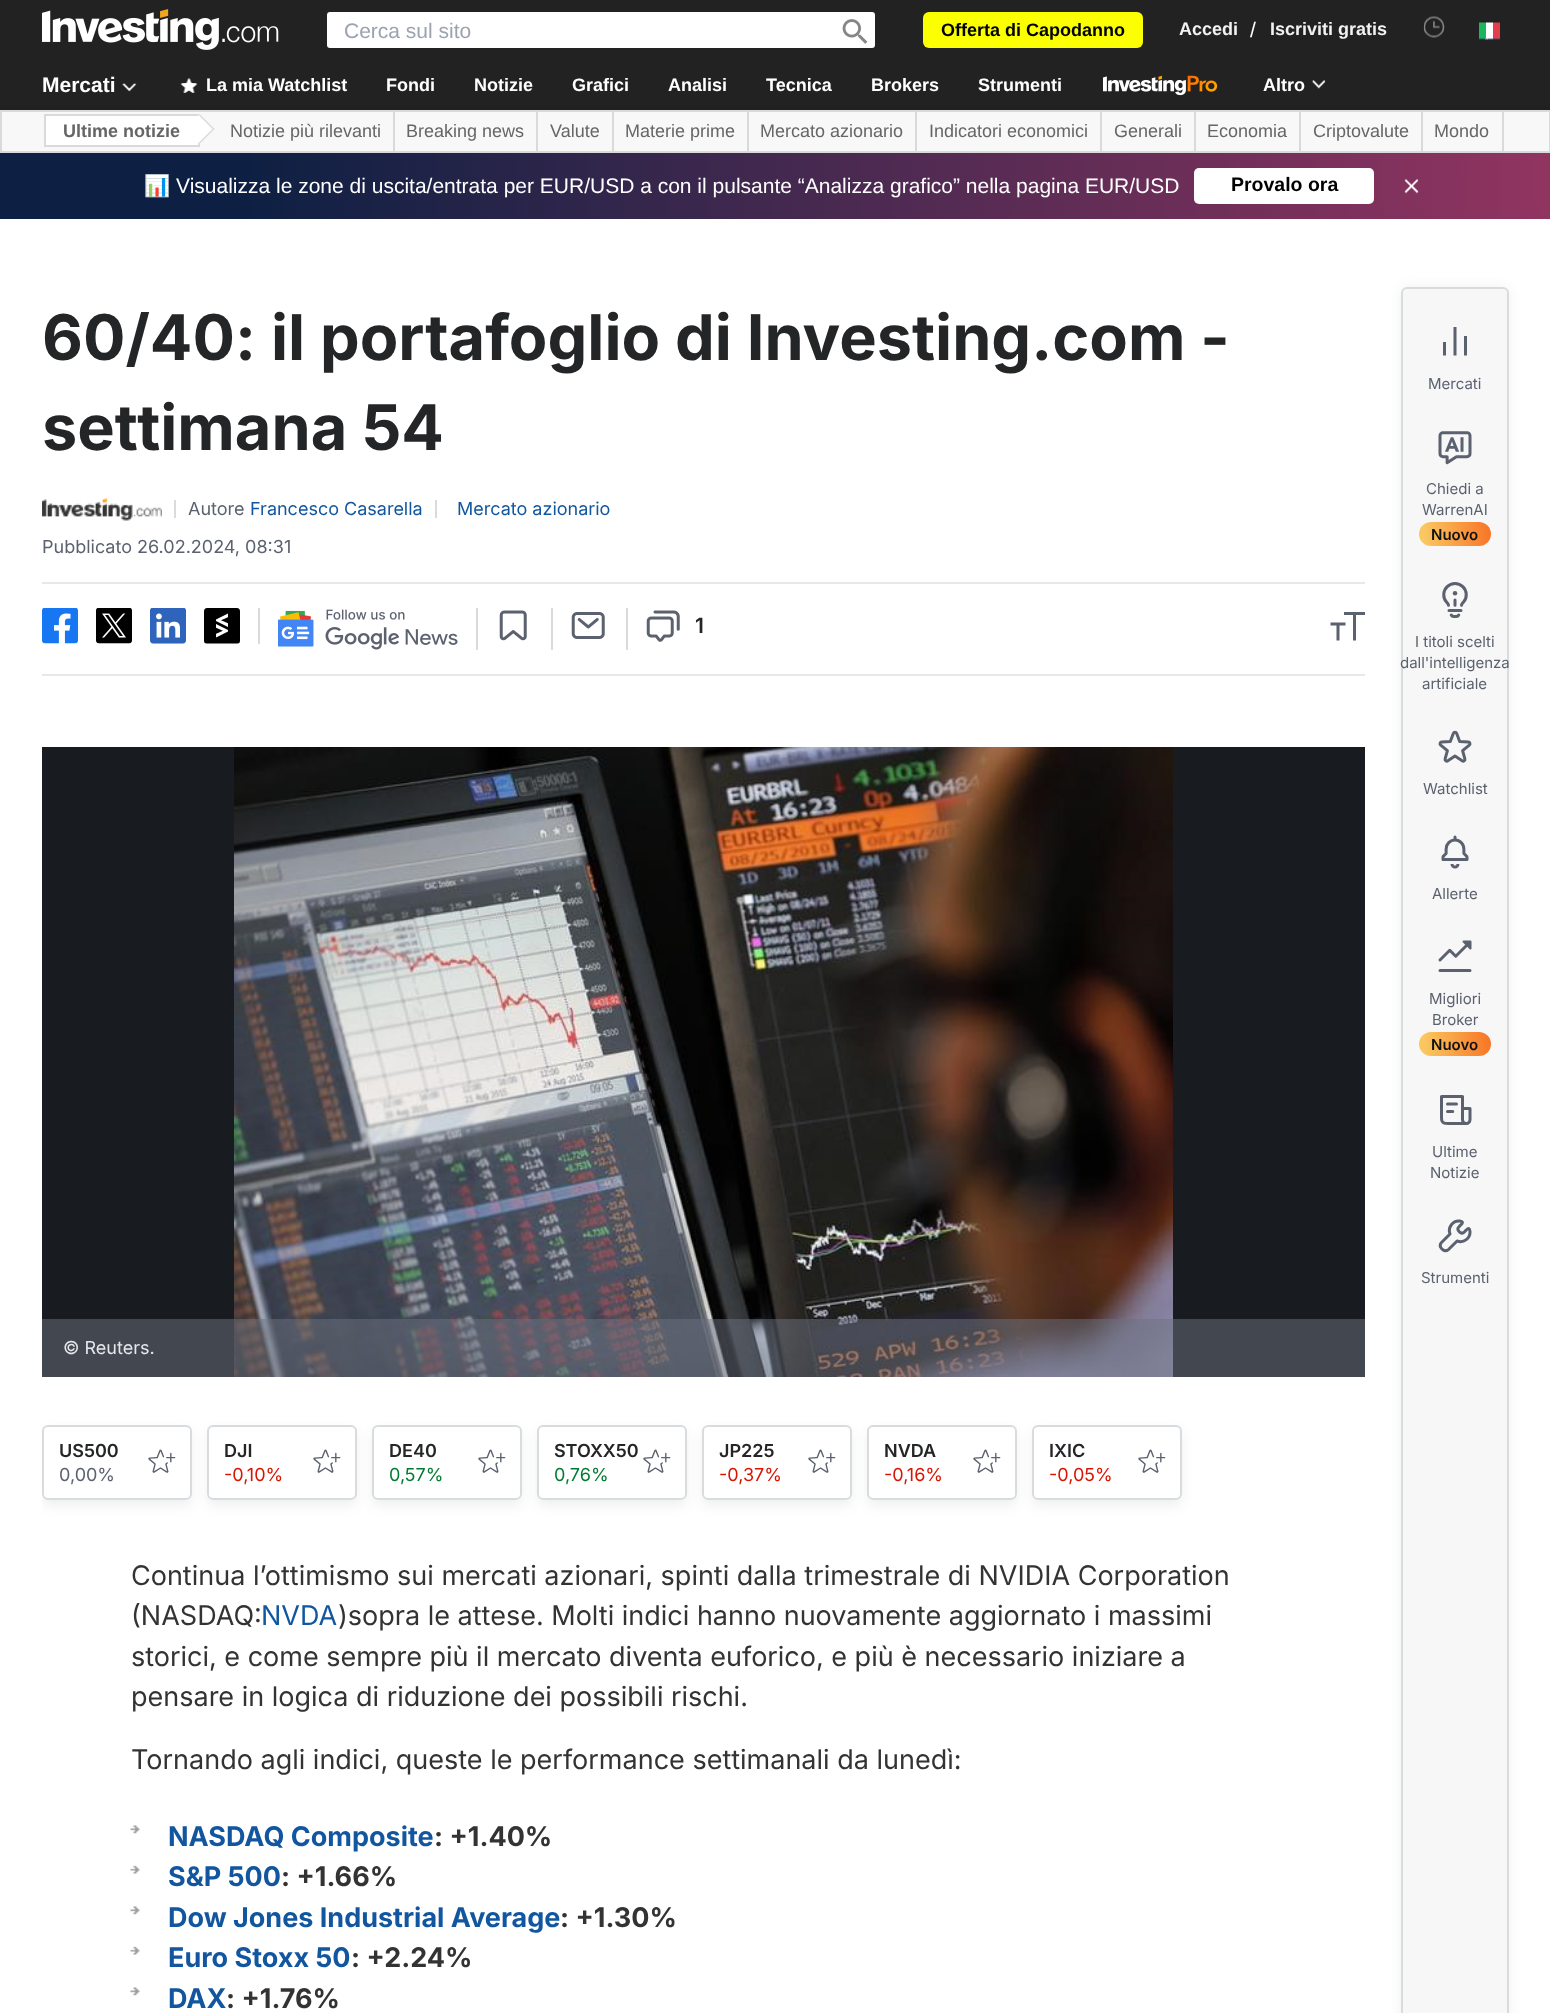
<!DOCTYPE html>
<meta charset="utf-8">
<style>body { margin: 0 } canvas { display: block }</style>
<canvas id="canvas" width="1550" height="2013"></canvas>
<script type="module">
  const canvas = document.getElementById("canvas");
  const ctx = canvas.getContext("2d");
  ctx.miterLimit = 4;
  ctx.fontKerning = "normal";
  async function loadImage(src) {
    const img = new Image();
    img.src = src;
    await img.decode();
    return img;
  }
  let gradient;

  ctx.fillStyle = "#ffffff";
  ctx.fillRect(0, 0, 1550, 2013);
  ctx.fillStyle = "#222222";
  ctx.fillRect(0, 0, 1550, 110);
  ctx.drawImage(await loadImage("img1.png"), 42, 9, 237, 41);
  ctx.fillStyle = "#ffffff";
  ctx.beginPath();
  ctx.roundRect(327, 12, 548, 36, 3);
  ctx.fill();
  ctx.font = "21px Liberation Sans";
  ctx.fillStyle = "#9ca3af";
  ctx.fillText("Cerca sul sito", 344, 38);
  ctx.drawImage(await loadImage("img2.png"), 842, 19, 26, 25);
  ctx.fillStyle = "#fbff00";
  ctx.beginPath();
  ctx.roundRect(923, 12, 220, 36, 6);
  ctx.fill();
  ctx.font = "bold 18px Liberation Sans";
  ctx.fillStyle = "#000000";
  ctx.fillText("Offerta di Capodanno", 941, 36);
  ctx.fillStyle = "#f2f2f2";
  ctx.fillText("Accedi", 1179, 35);
  ctx.font = "21px Liberation Sans";
  ctx.fillStyle = "#ffffff";
  ctx.fillText("/", 1250, 37);
  ctx.font = "bold 18px Liberation Sans";
  ctx.fillStyle = "#f2f2f2";
  ctx.fillText("Iscriviti gratis", 1270, 35);
  ctx.drawImage(await loadImage("img3.png"), 1423, 16, 22, 22);
  ctx.drawImage(await loadImage("img4.png"), 1479, 22, 21, 18);
  ctx.font = "bold 21px Liberation Sans";
  ctx.fillStyle = "#ffffff";
  ctx.fillText("Mercati", 42, 92);
  ctx.drawImage(await loadImage("img5.png"), 122, 83, 15, 9);
  ctx.drawImage(await loadImage("img6.png"), 180, 78, 18, 15);
  ctx.font = "bold 18px Liberation Sans";
  ctx.fillText("La mia Watchlist", 206, 91);
  ctx.fillText("Fondi", 386, 91);
  ctx.fillText("Notizie", 474, 91);
  ctx.fillText("Grafici", 572, 91);
  ctx.fillText("Analisi", 668, 91);
  ctx.fillText("Tecnica", 766, 91);
  ctx.fillText("Brokers", 871, 91);
  ctx.fillText("Strumenti", 978, 91);
  ctx.drawImage(await loadImage("img7.png"), 1103, 75, 115, 21);
  ctx.fillText("Altro", 1263, 91);
  ctx.drawImage(await loadImage("img8.png"), 1312, 79, 14, 10);
  ctx.fillStyle = "rgba(0, 0, 0, 0.2)";
  ctx.filter = "blur(2px)";
  ctx.beginPath();
  ctx.rect(0, 111, 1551, 44);
  ctx.fill();
  ctx.filter = "none";
  ctx.fillStyle = "#f8f8f8";
  ctx.beginPath();
  ctx.rect(1, 111, 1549, 41);
  ctx.fill();
  ctx.strokeStyle = "#dadada";
  ctx.lineWidth = 2;
  ctx.stroke();
  ctx.fillStyle = "#ffffff";
  ctx.beginPath();
  ctx.rect(45, 115, 154, 31);
  ctx.fill();
  ctx.stroke();
  ctx.fillStyle = "#666666";
  ctx.fillText("Ultime notizie", 63, 137);
  ctx.fillStyle = "#ffffff";
  ctx.beginPath();
  ctx.moveTo(199.5, 114);
  ctx.lineTo(214.5, 129);
  ctx.lineTo(199.5, 144);
  ctx.lineTo(184.5, 129);
  ctx.closePath();
  ctx.fill();
  ctx.fillStyle = "#dadada";
  ctx.beginPath();
  ctx.moveTo(199.5, 114);
  ctx.lineTo(214.5, 129);
  ctx.lineTo(213.5, 130);
  ctx.lineTo(198.5, 115);
  ctx.closePath();
  ctx.fill();
  ctx.beginPath();
  ctx.moveTo(213.5, 128);
  ctx.lineTo(214.5, 129);
  ctx.lineTo(199.5, 144);
  ctx.lineTo(198.5, 143);
  ctx.closePath();
  ctx.fill();
  ctx.fillRect(393, 111, 2, 41);
  ctx.font = "18px Liberation Sans";
  ctx.fillStyle = "#666666";
  ctx.fillText("Notizie più rilevanti", 230, 137);
  ctx.fillStyle = "#dadada";
  ctx.fillRect(536, 111, 2, 41);
  ctx.fillStyle = "#666666";
  ctx.fillText("Breaking news", 406, 137);
  ctx.fillStyle = "#dadada";
  ctx.fillRect(612, 111, 2, 41);
  ctx.fillStyle = "#666666";
  ctx.fillText("Valute", 550, 137);
  ctx.fillStyle = "#dadada";
  ctx.fillRect(747, 111, 2, 41);
  ctx.fillStyle = "#666666";
  ctx.fillText("Materie prime", 625, 137);
  ctx.fillStyle = "#dadada";
  ctx.fillRect(915, 111, 2, 41);
  ctx.fillStyle = "#666666";
  ctx.fillText("Mercato azionario", 760, 137);
  ctx.fillStyle = "#dadada";
  ctx.fillRect(1100, 111, 2, 41);
  ctx.fillStyle = "#666666";
  ctx.fillText("Indicatori economici", 929, 137);
  ctx.fillStyle = "#dadada";
  ctx.fillRect(1194, 111, 2, 41);
  ctx.fillStyle = "#666666";
  ctx.fillText("Generali", 1114, 137);
  ctx.fillStyle = "#dadada";
  ctx.fillRect(1299, 111, 2, 41);
  ctx.fillStyle = "#666666";
  ctx.fillText("Economia", 1207, 137);
  ctx.fillStyle = "#dadada";
  ctx.fillRect(1421, 111, 2, 41);
  ctx.fillStyle = "#666666";
  ctx.fillText("Criptovalute", 1313, 137);
  ctx.fillStyle = "#dadada";
  ctx.fillRect(1502, 111, 2, 41);
  ctx.fillStyle = "#666666";
  ctx.fillText("Mondo", 1434, 137);
  gradient = ctx.createRadialGradient(2451, 167, 0, 2451, 167, 2451);
  gradient.addColorStop(0, "#ec4275");
  gradient.addColorStop(0.9, "#0d2043");
  ctx.fillStyle = gradient;
  ctx.fillRect(0, 153, 1550, 66);
  ctx.font = "21px Noto Color Emoji";
  ctx.fillStyle = "#ffffff";
  ctx.fillText("📊", 144, 193);
  ctx.font = "21px Liberation Sans";
  ctx.fillText("Visualizza le zone di uscita/entrata per EUR/USD a con il pulsante “Analizza grafico” nella pagina EUR/USD", 176, 193);
  ctx.beginPath();
  ctx.roundRect(1194, 168, 180, 36, 5);
  ctx.fill();
  ctx.font = "bold 19.5px Liberation Sans";
  ctx.fillStyle = "#000000";
  ctx.fillText("Provalo ora", 1231, 191);
  ctx.drawImage(await loadImage("img9.png"), 1404, 179, 15, 15);
  ctx.font = "bold 63px Inter";
  ctx.fillStyle = "#232526";
  ctx.fillText("60/40: il portafoglio di Investing.com -", 42, 360);
  ctx.fillText("settimana 54", 42, 450);
  ctx.drawImage(await loadImage("img10.png"), 42, 498, 120, 23);
  ctx.fillStyle = "#d9dcdf";
  ctx.fillRect(174, 500, 2, 18);
  ctx.font = "18px Inter";
  ctx.fillStyle = "#5b616e";
  ctx.fillText("Autore", 188, 515);
  ctx.fillStyle = "#1256a0";
  ctx.fillText("Francesco Casarella", 250, 515);
  ctx.fillStyle = "#d9dcdf";
  ctx.fillRect(435, 500, 2, 18);
  ctx.fillStyle = "#1256a0";
  ctx.fillText("Mercato azionario", 457, 515);
  ctx.fillStyle = "#5b616e";
  ctx.fillText("Pubblicato 26.02.2024, 08:31", 42, 553);
  ctx.fillStyle = "#e6e9eb";
  ctx.fillRect(42, 582, 1323, 2);
  ctx.fillStyle = "#dadada";
  ctx.fillRect(258, 608, 2, 36);
  ctx.drawImage(await loadImage("img11.png"), 42, 608, 36, 36);
  ctx.drawImage(await loadImage("img12.png"), 96, 608, 36, 36);
  ctx.drawImage(await loadImage("img13.png"), 150, 608, 36, 36);
  ctx.drawImage(await loadImage("img14.png"), 204, 608, 36, 36);
  ctx.fillRect(476, 608, 2, 42);
  ctx.drawImage(await loadImage("img15.png"), 278, 609, 180, 41);
  ctx.fillRect(551, 608, 2, 42);
  ctx.drawImage(await loadImage("img16.png"), 499, 610, 28, 31);
  ctx.fillRect(626, 608, 2, 42);
  ctx.drawImage(await loadImage("img17.png"), 571, 612, 34, 27);
  ctx.drawImage(await loadImage("img18.png"), 646, 610, 34, 32);
  ctx.font = "600 21px Inter";
  ctx.fillStyle = "#232526";
  ctx.fillText("1", 695, 633);
  ctx.beginPath();
  ctx.moveTo(1345.5, 613.5);
  ctx.lineTo(1354.5, 613.5);
  ctx.moveTo(1354.5, 613.5);
  ctx.lineTo(1363.5, 613.5);
  ctx.moveTo(1354.5, 613.5);
  ctx.lineTo(1354.5, 639);
  ctx.moveTo(1332, 624);
  ctx.lineTo(1338, 624);
  ctx.moveTo(1338, 624);
  ctx.lineTo(1344, 624);
  ctx.moveTo(1338, 624);
  ctx.lineTo(1338, 639);
  ctx.strokeStyle = "#5b616e";
  ctx.lineWidth = 3;
  ctx.lineCap = "square";
  ctx.lineJoin = "round";
  ctx.stroke();
  ctx.fillStyle = "#e6e9eb";
  ctx.fillRect(42, 674, 1323, 2);
  ctx.fillStyle = "#181c21";
  ctx.fillRect(42, 747, 1323, 630);
  ctx.drawImage(await loadImage("img19.png"), 234, 747, 939, 630);
  ctx.fillStyle = "rgba(107, 114, 128, 0.5)";
  ctx.fillRect(42, 1319, 1323, 58);
  ctx.font = "18px Inter";
  ctx.fillStyle = "#e5e7eb";
  ctx.fillText("© Reuters.", 63, 1354);
  ctx.save();
  ctx.beginPath();
  ctx.rect(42, 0, 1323, 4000);
  ctx.clip();
  ctx.beginPath();
  ctx.moveTo(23, 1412);
  ctx.lineTo(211, 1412);
  ctx.lineTo(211, 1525);
  ctx.lineTo(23, 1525);
  ctx.closePath();
  ctx.moveTo(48, 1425);
  ctx.lineTo(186, 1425);
  ctx.bezierCurveTo(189.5, 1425, 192, 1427.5, 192, 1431);
  ctx.lineTo(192, 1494);
  ctx.bezierCurveTo(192, 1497.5, 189.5, 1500, 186, 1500);
  ctx.lineTo(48, 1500);
  ctx.bezierCurveTo(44.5, 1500, 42, 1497.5, 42, 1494);
  ctx.lineTo(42, 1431);
  ctx.bezierCurveTo(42, 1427.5, 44.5, 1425, 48, 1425);
  ctx.closePath();
  ctx.clip("evenodd");
  ctx.fillStyle = "rgba(35, 37, 38, 0.07)";
  ctx.filter = "blur(6px)";
  ctx.beginPath();
  ctx.roundRect(42, 1431, 150, 75, 6);
  ctx.fill();
  ctx.filter = "none";
  ctx.restore();
  ctx.beginPath();
  ctx.roundRect(43, 1426, 148, 73, 5);
  ctx.strokeStyle = "#d9dcdf";
  ctx.lineWidth = 2;
  ctx.lineJoin = "miter";
  ctx.stroke();
  ctx.font = "600 18px Inter";
  ctx.fillStyle = "#232526";
  ctx.fillText("US500", 59, 1457);
  ctx.font = "18px Inter";
  ctx.fillStyle = "#5b616e";
  ctx.fillText("0,00%", 59, 1481);
  ctx.drawImage(await loadImage("img20.png"), 148, 1449, 28, 24);
  ctx.save();
  ctx.beginPath();
  ctx.moveTo(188, 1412);
  ctx.lineTo(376, 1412);
  ctx.lineTo(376, 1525);
  ctx.lineTo(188, 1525);
  ctx.closePath();
  ctx.moveTo(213, 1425);
  ctx.lineTo(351, 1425);
  ctx.bezierCurveTo(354.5, 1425, 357, 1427.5, 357, 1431);
  ctx.lineTo(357, 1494);
  ctx.bezierCurveTo(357, 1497.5, 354.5, 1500, 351, 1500);
  ctx.lineTo(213, 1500);
  ctx.bezierCurveTo(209.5, 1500, 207, 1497.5, 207, 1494);
  ctx.lineTo(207, 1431);
  ctx.bezierCurveTo(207, 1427.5, 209.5, 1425, 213, 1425);
  ctx.closePath();
  ctx.clip("evenodd");
  ctx.fillStyle = "rgba(35, 37, 38, 0.07)";
  ctx.filter = "blur(6px)";
  ctx.beginPath();
  ctx.roundRect(207, 1431, 150, 75, 6);
  ctx.fill();
  ctx.filter = "none";
  ctx.restore();
  ctx.beginPath();
  ctx.roundRect(208, 1426, 148, 73, 5);
  ctx.stroke();
  ctx.font = "600 18px Inter";
  ctx.fillStyle = "#232526";
  ctx.fillText("DJI", 224, 1457);
  ctx.font = "18px Inter";
  ctx.fillStyle = "#d91400";
  ctx.fillText("-0,10%", 224, 1481);
  ctx.drawImage(await loadImage("img20.png"), 313, 1449, 28, 24);
  ctx.save();
  ctx.beginPath();
  ctx.moveTo(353, 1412);
  ctx.lineTo(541, 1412);
  ctx.lineTo(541, 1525);
  ctx.lineTo(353, 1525);
  ctx.closePath();
  ctx.moveTo(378, 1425);
  ctx.lineTo(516, 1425);
  ctx.bezierCurveTo(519.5, 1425, 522, 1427.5, 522, 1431);
  ctx.lineTo(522, 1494);
  ctx.bezierCurveTo(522, 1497.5, 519.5, 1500, 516, 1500);
  ctx.lineTo(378, 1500);
  ctx.bezierCurveTo(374.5, 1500, 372, 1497.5, 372, 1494);
  ctx.lineTo(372, 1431);
  ctx.bezierCurveTo(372, 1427.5, 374.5, 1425, 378, 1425);
  ctx.closePath();
  ctx.clip("evenodd");
  ctx.fillStyle = "rgba(35, 37, 38, 0.07)";
  ctx.filter = "blur(6px)";
  ctx.beginPath();
  ctx.roundRect(372, 1431, 150, 75, 6);
  ctx.fill();
  ctx.filter = "none";
  ctx.restore();
  ctx.beginPath();
  ctx.roundRect(373, 1426, 148, 73, 5);
  ctx.stroke();
  ctx.font = "600 18px Inter";
  ctx.fillStyle = "#232526";
  ctx.fillText("DE40", 389, 1457);
  ctx.font = "18px Inter";
  ctx.fillStyle = "#007c32";
  ctx.fillText("0,57%", 389, 1481);
  ctx.drawImage(await loadImage("img20.png"), 478, 1449, 28, 24);
  ctx.save();
  ctx.beginPath();
  ctx.moveTo(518, 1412);
  ctx.lineTo(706, 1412);
  ctx.lineTo(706, 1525);
  ctx.lineTo(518, 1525);
  ctx.closePath();
  ctx.moveTo(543, 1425);
  ctx.lineTo(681, 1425);
  ctx.bezierCurveTo(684.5, 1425, 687, 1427.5, 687, 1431);
  ctx.lineTo(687, 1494);
  ctx.bezierCurveTo(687, 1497.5, 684.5, 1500, 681, 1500);
  ctx.lineTo(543, 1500);
  ctx.bezierCurveTo(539.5, 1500, 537, 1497.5, 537, 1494);
  ctx.lineTo(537, 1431);
  ctx.bezierCurveTo(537, 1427.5, 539.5, 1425, 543, 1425);
  ctx.closePath();
  ctx.clip("evenodd");
  ctx.fillStyle = "rgba(35, 37, 38, 0.07)";
  ctx.filter = "blur(6px)";
  ctx.beginPath();
  ctx.roundRect(537, 1431, 150, 75, 6);
  ctx.fill();
  ctx.filter = "none";
  ctx.restore();
  ctx.beginPath();
  ctx.roundRect(538, 1426, 148, 73, 5);
  ctx.stroke();
  ctx.font = "600 18px Inter";
  ctx.fillStyle = "#232526";
  ctx.fillText("STOXX50", 554, 1457);
  ctx.font = "18px Inter";
  ctx.fillStyle = "#007c32";
  ctx.fillText("0,76%", 554, 1481);
  ctx.drawImage(await loadImage("img20.png"), 643, 1449, 28, 24);
  ctx.save();
  ctx.beginPath();
  ctx.moveTo(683, 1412);
  ctx.lineTo(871, 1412);
  ctx.lineTo(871, 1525);
  ctx.lineTo(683, 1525);
  ctx.closePath();
  ctx.moveTo(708, 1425);
  ctx.lineTo(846, 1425);
  ctx.bezierCurveTo(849.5, 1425, 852, 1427.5, 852, 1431);
  ctx.lineTo(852, 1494);
  ctx.bezierCurveTo(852, 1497.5, 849.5, 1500, 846, 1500);
  ctx.lineTo(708, 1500);
  ctx.bezierCurveTo(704.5, 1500, 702, 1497.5, 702, 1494);
  ctx.lineTo(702, 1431);
  ctx.bezierCurveTo(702, 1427.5, 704.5, 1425, 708, 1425);
  ctx.closePath();
  ctx.clip("evenodd");
  ctx.fillStyle = "rgba(35, 37, 38, 0.07)";
  ctx.filter = "blur(6px)";
  ctx.beginPath();
  ctx.roundRect(702, 1431, 150, 75, 6);
  ctx.fill();
  ctx.filter = "none";
  ctx.restore();
  ctx.beginPath();
  ctx.roundRect(703, 1426, 148, 73, 5);
  ctx.stroke();
  ctx.font = "600 18px Inter";
  ctx.fillStyle = "#232526";
  ctx.fillText("JP225", 719, 1457);
  ctx.font = "18px Inter";
  ctx.fillStyle = "#d91400";
  ctx.fillText("-0,37%", 719, 1481);
  ctx.drawImage(await loadImage("img20.png"), 808, 1449, 28, 24);
  ctx.save();
  ctx.beginPath();
  ctx.moveTo(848, 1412);
  ctx.lineTo(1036, 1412);
  ctx.lineTo(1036, 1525);
  ctx.lineTo(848, 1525);
  ctx.closePath();
  ctx.moveTo(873, 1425);
  ctx.lineTo(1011, 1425);
  ctx.bezierCurveTo(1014.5, 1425, 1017, 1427.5, 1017, 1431);
  ctx.lineTo(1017, 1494);
  ctx.bezierCurveTo(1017, 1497.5, 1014.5, 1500, 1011, 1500);
  ctx.lineTo(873, 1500);
  ctx.bezierCurveTo(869.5, 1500, 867, 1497.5, 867, 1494);
  ctx.lineTo(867, 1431);
  ctx.bezierCurveTo(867, 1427.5, 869.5, 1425, 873, 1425);
  ctx.closePath();
  ctx.clip("evenodd");
  ctx.fillStyle = "rgba(35, 37, 38, 0.07)";
  ctx.filter = "blur(6px)";
  ctx.beginPath();
  ctx.roundRect(867, 1431, 150, 75, 6);
  ctx.fill();
  ctx.filter = "none";
  ctx.restore();
  ctx.beginPath();
  ctx.roundRect(868, 1426, 148, 73, 5);
  ctx.stroke();
  ctx.font = "600 18px Inter";
  ctx.fillStyle = "#232526";
  ctx.fillText("NVDA", 884, 1457);
  ctx.font = "18px Inter";
  ctx.fillStyle = "#d91400";
  ctx.fillText("-0,16%", 884, 1481);
  ctx.drawImage(await loadImage("img20.png"), 973, 1449, 28, 24);
  ctx.save();
  ctx.beginPath();
  ctx.moveTo(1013, 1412);
  ctx.lineTo(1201, 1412);
  ctx.lineTo(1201, 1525);
  ctx.lineTo(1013, 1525);
  ctx.closePath();
  ctx.moveTo(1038, 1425);
  ctx.lineTo(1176, 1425);
  ctx.bezierCurveTo(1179.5, 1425, 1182, 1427.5, 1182, 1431);
  ctx.lineTo(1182, 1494);
  ctx.bezierCurveTo(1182, 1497.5, 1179.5, 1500, 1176, 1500);
  ctx.lineTo(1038, 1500);
  ctx.bezierCurveTo(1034.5, 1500, 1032, 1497.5, 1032, 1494);
  ctx.lineTo(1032, 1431);
  ctx.bezierCurveTo(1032, 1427.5, 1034.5, 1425, 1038, 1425);
  ctx.closePath();
  ctx.clip("evenodd");
  ctx.fillStyle = "rgba(35, 37, 38, 0.07)";
  ctx.filter = "blur(6px)";
  ctx.beginPath();
  ctx.roundRect(1032, 1431, 150, 75, 6);
  ctx.fill();
  ctx.filter = "none";
  ctx.restore();
  ctx.beginPath();
  ctx.roundRect(1033, 1426, 148, 73, 5);
  ctx.stroke();
  ctx.font = "600 18px Inter";
  ctx.fillStyle = "#232526";
  ctx.fillText("IXIC", 1049, 1457);
  ctx.font = "18px Inter";
  ctx.fillStyle = "#d91400";
  ctx.fillText("-0,05%", 1049, 1481);
  ctx.drawImage(await loadImage("img20.png"), 1138, 1449, 28, 24);
  ctx.font = "27px Inter";
  ctx.fillStyle = "#333333";
  ctx.fillText("Continua l’ottimismo sui mercati azionari, spinti dalla trimestrale di NVIDIA Corporation", 131, 1585);
  ctx.fillText("(NASDAQ:", 131, 1625);
  ctx.fillStyle = "#1256a0";
  ctx.fillText("NVDA", 261, 1625);
  ctx.fillStyle = "#333333";
  ctx.fillText(")sopra le attese. Molti indici hanno nuovamente aggiornato i massimi", 338, 1625);
  ctx.fillText("storici, e come sempre più il mercato diventa euforico, e più è necessario iniziare a", 131, 1666);
  ctx.fillText("pensare in logica di riduzione dei possibili rischi.", 131, 1706);
  ctx.fillText("Tornando agli indici, queste le performance settimanali da lunedì:", 131, 1769);
  ctx.drawImage(await loadImage("img21.png"), 130, 1825, 10, 9);
  ctx.font = "bold 27px Inter";
  ctx.fillStyle = "#1256a0";
  ctx.fillText("NASDAQ Composite", 168, 1846);
  ctx.fillStyle = "#333333";
  ctx.fillText(": +1.40%", 434, 1846);
  ctx.drawImage(await loadImage("img22.png"), 130, 1865, 10, 9);
  ctx.fillStyle = "#1256a0";
  ctx.fillText("S&P 500", 168, 1886);
  ctx.fillStyle = "#333333";
  ctx.fillText(": +1.66%", 281, 1886);
  ctx.drawImage(await loadImage("img21.png"), 130, 1906, 10, 9);
  ctx.fillStyle = "#1256a0";
  ctx.fillText("Dow Jones Industrial Average", 168, 1927);
  ctx.fillStyle = "#333333";
  ctx.fillText(": +1.30%", 560, 1927);
  ctx.drawImage(await loadImage("img22.png"), 130, 1946, 10, 9);
  ctx.fillStyle = "#1256a0";
  ctx.fillText("Euro Stoxx 50", 168, 1967);
  ctx.fillStyle = "#333333";
  ctx.fillText(": +2.24%", 351, 1967);
  ctx.drawImage(await loadImage("img21.png"), 130, 1987, 10, 9);
  ctx.fillStyle = "#1256a0";
  ctx.fillText("DAX", 168, 2008);
  ctx.fillStyle = "#333333";
  ctx.fillText(": +1.76%", 226, 2008);
  ctx.fillStyle = "rgba(35, 37, 38, 0.07)";
  ctx.filter = "blur(6px)";
  ctx.beginPath();
  ctx.roundRect(1401, 287, 108, 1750, 6);
  ctx.fill();
  ctx.filter = "none";
  ctx.fillStyle = "#f7f7f8";
  ctx.beginPath();
  ctx.roundRect(1402, 288, 106, 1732, 5);
  ctx.fill();
  ctx.stroke();
  ctx.drawImage(await loadImage("img23.png"), 1443, 327, 24, 29);
  ctx.font = "15px Inter";
  ctx.fillStyle = "#5b616e";
  ctx.fillText("Mercati", 1428, 389);
  ctx.drawImage(await loadImage("img24.png"), 1438, 431, 34, 34);
  ctx.fillText("Chiedi a", 1426, 494);
  ctx.fillText("WarrenAI", 1422, 515);
  gradient = ctx.createLinearGradient(1418, 537, 1502, 531);
  gradient.addColorStop(0.07, "#fac761");
  gradient.addColorStop(1, "#f7681c");
  ctx.fillStyle = gradient;
  ctx.beginPath();
  ctx.roundRect(1419, 522, 72, 24, 12);
  ctx.fill();
  ctx.font = "600 15px Inter";
  ctx.fillStyle = "#111111";
  ctx.fillText("Nuovo", 1431, 540);
  ctx.drawImage(await loadImage("img25.png"), 1442, 582, 26, 36);
  ctx.font = "15px Inter";
  ctx.fillStyle = "#5b616e";
  ctx.fillText("I titoli scelti", 1415, 647);
  ctx.fillText("dall'intelligenza", 1400, 668);
  ctx.fillText("artificiale", 1422, 689);
  ctx.drawImage(await loadImage("img26.png"), 1438, 730, 34, 33);
  ctx.fillText("Watchlist", 1423, 794);
  ctx.drawImage(await loadImage("img27.png"), 1441, 835, 28, 34);
  ctx.fillText("Allerte", 1432, 899);
  ctx.drawImage(await loadImage("img28.png"), 1438, 940, 34, 32);
  ctx.fillText("Migliori", 1429, 1004);
  ctx.fillText("Broker", 1432, 1025);
  gradient = ctx.createLinearGradient(1418, 1047, 1502, 1041);
  gradient.addColorStop(0.07, "#fac761");
  gradient.addColorStop(1, "#f7681c");
  ctx.fillStyle = gradient;
  ctx.beginPath();
  ctx.roundRect(1419, 1032, 72, 24, 12);
  ctx.fill();
  ctx.font = "600 15px Inter";
  ctx.fillStyle = "#111111";
  ctx.fillText("Nuovo", 1431, 1050);
  ctx.drawImage(await loadImage("img29.png"), 1440, 1095, 32, 30);
  ctx.font = "15px Inter";
  ctx.fillStyle = "#5b616e";
  ctx.fillText("Ultime", 1432, 1157);
  ctx.fillText("Notizie", 1430, 1178);
  ctx.drawImage(await loadImage("img30.png"), 1438, 1219, 34, 34);
  ctx.fillText("Strumenti", 1421, 1283);
</script>
